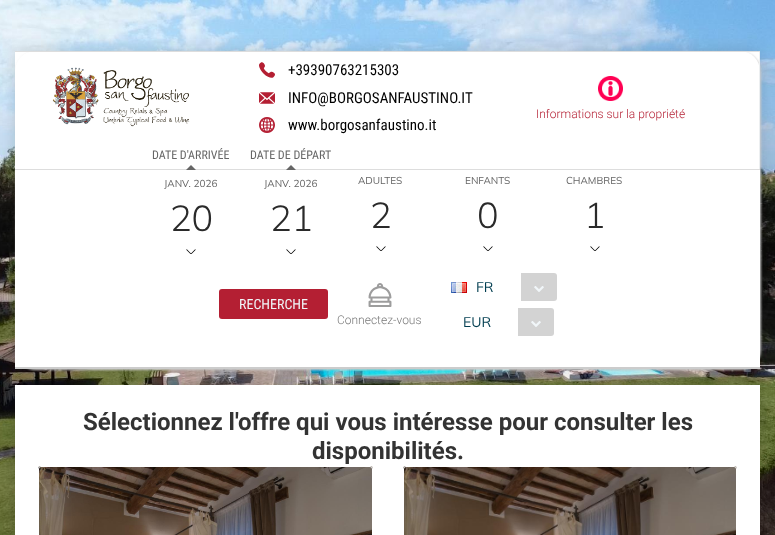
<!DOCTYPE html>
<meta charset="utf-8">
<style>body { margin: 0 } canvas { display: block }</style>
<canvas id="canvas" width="775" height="535"></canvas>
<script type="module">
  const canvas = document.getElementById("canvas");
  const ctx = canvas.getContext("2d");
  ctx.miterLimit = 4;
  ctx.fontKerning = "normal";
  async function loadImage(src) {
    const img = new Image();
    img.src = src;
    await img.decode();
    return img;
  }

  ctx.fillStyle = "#ffffff";
  ctx.fillRect(0, 0, 775, 535);
  ctx.drawImage(await loadImage("img1.png"), 0, 0, 775, 535);
  ctx.fillStyle = "rgba(0, 0, 0, 0.15)";
  ctx.filter = "blur(8px)";
  ctx.beginPath();
  ctx.rect(15, 385, 745, 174);
  ctx.fill();
  ctx.filter = "none";
  ctx.fillStyle = "#ffffff";
  ctx.fillRect(15, 385, 745, 150);
  ctx.fillStyle = "rgba(0, 0, 0, 0.15)";
  ctx.filter = "blur(8px)";
  ctx.beginPath();
  ctx.rect(15, 51, 745, 318);
  ctx.fill();
  ctx.filter = "none";
  ctx.fillStyle = "#ffffff";
  ctx.fillRect(15, 52, 744, 19);
  ctx.fillStyle = "#cccccc";
  ctx.filter = "blur(1px)";
  ctx.beginPath();
  ctx.roundRect(16, 52, 745, 318, 20);
  ctx.fill();
  ctx.filter = "none";
  ctx.fillStyle = "#ffffff";
  ctx.beginPath();
  ctx.roundRect(15, 51, 745, 318, [20, 20, 0, 0]);
  ctx.fill();
  ctx.fillStyle = "#cccccc";
  ctx.fillRect(15, 367, 745, 2);
  ctx.fillStyle = "#dddddd";
  ctx.fillRect(15, 51, 745, 1);
  ctx.fillStyle = "#eceff1";
  ctx.fillRect(759, 52, 1, 117);
  ctx.drawImage(await loadImage("img2.png"), 52, 67, 138, 60);
  ctx.drawImage(await loadImage("img3.png"), 259, 62, 16, 16);
  ctx.font = "15px Roboto Condensed";
  ctx.fillStyle = "#000000";
  ctx.fillText("+39390763215303", 288, 75);
  ctx.drawImage(await loadImage("img4.png"), 259, 92, 16, 12);
  ctx.fillText("INFO@BORGOSANFAUSTINO.IT", 288, 103);
  ctx.drawImage(await loadImage("img5.png"), 259, 117, 16, 16);
  ctx.fillText("www.borgosanfaustino.it", 288, 130);
  ctx.drawImage(await loadImage("img6.png"), 598, 76, 25, 25);
  ctx.font = "300 12px Roboto";
  ctx.fillStyle = "#b41f33";
  ctx.fillText("Informations sur la propriété", 536, 118);
  ctx.fillStyle = "#dddddd";
  ctx.fillRect(15, 169, 745, 1);
  ctx.font = "12px Roboto Condensed";
  ctx.fillStyle = "#666666";
  ctx.fillText("DATE D'ARRIVÉE", 152, 159);
  ctx.beginPath();
  ctx.moveTo(196, 170);
  ctx.lineTo(186, 170);
  ctx.lineTo(191, 165);
  ctx.closePath();
  ctx.fill();
  ctx.font = "10px Mulish";
  ctx.fillText("JANV. 2026", 164, 187);
  ctx.font = "300 36px Mulish";
  ctx.fillStyle = "#2a2a2a";
  ctx.fillText("20", 170, 231);
  ctx.drawImage(await loadImage("img7.png"), 186, 249, 10, 5);
  ctx.font = "12px Roboto Condensed";
  ctx.fillStyle = "#666666";
  ctx.fillText("DATE DE DÉPART", 250, 159);
  ctx.beginPath();
  ctx.moveTo(296, 170);
  ctx.lineTo(286, 170);
  ctx.lineTo(291, 165);
  ctx.closePath();
  ctx.fill();
  ctx.font = "10px Mulish";
  ctx.fillText("JANV. 2026", 264, 187);
  ctx.font = "300 36px Mulish";
  ctx.fillStyle = "#2a2a2a";
  ctx.fillText("21", 270, 231);
  ctx.drawImage(await loadImage("img7.png"), 286, 249, 10, 5);
  ctx.font = "10px Mulish";
  ctx.fillStyle = "#666666";
  ctx.fillText("ADULTES", 358, 184);
  ctx.font = "300 36px Mulish";
  ctx.fillStyle = "#2a2a2a";
  ctx.fillText("2", 370, 228);
  ctx.drawImage(await loadImage("img7.png"), 376, 246, 10, 5);
  ctx.font = "10px Mulish";
  ctx.fillStyle = "#666666";
  ctx.fillText("ENFANTS", 465, 184);
  ctx.font = "300 36px Mulish";
  ctx.fillStyle = "#2a2a2a";
  ctx.fillText("0", 477, 228);
  ctx.drawImage(await loadImage("img7.png"), 483, 246, 10, 5);
  ctx.font = "10px Mulish";
  ctx.fillStyle = "#666666";
  ctx.fillText("CHAMBRES", 566, 184);
  ctx.font = "300 36px Mulish";
  ctx.fillStyle = "#2a2a2a";
  ctx.fillText("1", 584, 228);
  ctx.drawImage(await loadImage("img7.png"), 590, 246, 10, 5);
  ctx.fillStyle = "#b41f33";
  ctx.beginPath();
  ctx.roundRect(219, 289, 109, 30, 3);
  ctx.fill();
  ctx.font = "14px Roboto Condensed";
  ctx.fillStyle = "#f1f6f9";
  ctx.fillText("RECHERCHE", 239, 309);
  ctx.drawImage(await loadImage("img8.png"), 368, 283, 24, 24);
  ctx.font = "300 12px Roboto";
  ctx.fillStyle = "#787878";
  ctx.fillText("Connectez-vous", 337, 324);
  ctx.drawImage(await loadImage("img9.png"), 451, 282, 16, 11);
  ctx.font = "14px Mulish";
  ctx.fillStyle = "#003d50";
  ctx.fillText("FR", 476, 292);
  ctx.fillStyle = "#d3d3d3";
  ctx.beginPath();
  ctx.roundRect(521, 273, 36, 28, [0, 3, 3, 0]);
  ctx.fill();
  ctx.drawImage(await loadImage("img10.png"), 534, 286, 10, 6);
  ctx.fillStyle = "#003d50";
  ctx.fillText("EUR", 463, 327);
  ctx.fillStyle = "#d3d3d3";
  ctx.beginPath();
  ctx.roundRect(518, 308, 36, 28, [0, 3, 3, 0]);
  ctx.fill();
  ctx.drawImage(await loadImage("img10.png"), 531, 321, 10, 6);
  ctx.font = "bold 24px Roboto";
  ctx.fillStyle = "#333333";
  ctx.fillText("Sélectionnez l'offre qui vous intéresse pour consulter les", 83, 430);
  ctx.fillText("disponibilités.", 312, 459);
  ctx.drawImage(await loadImage("img11.png"), 38, 466, 335, 69);
  ctx.beginPath();
  ctx.roundRect(38.5, 466.5, 334, 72, 2.5);
  ctx.strokeStyle = "#ffffff";
  ctx.stroke();
  ctx.drawImage(await loadImage("img12.png"), 403, 466, 334, 69);
  ctx.beginPath();
  ctx.roundRect(403.5, 466.5, 333, 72, 2.5);
  ctx.stroke();
</script>
